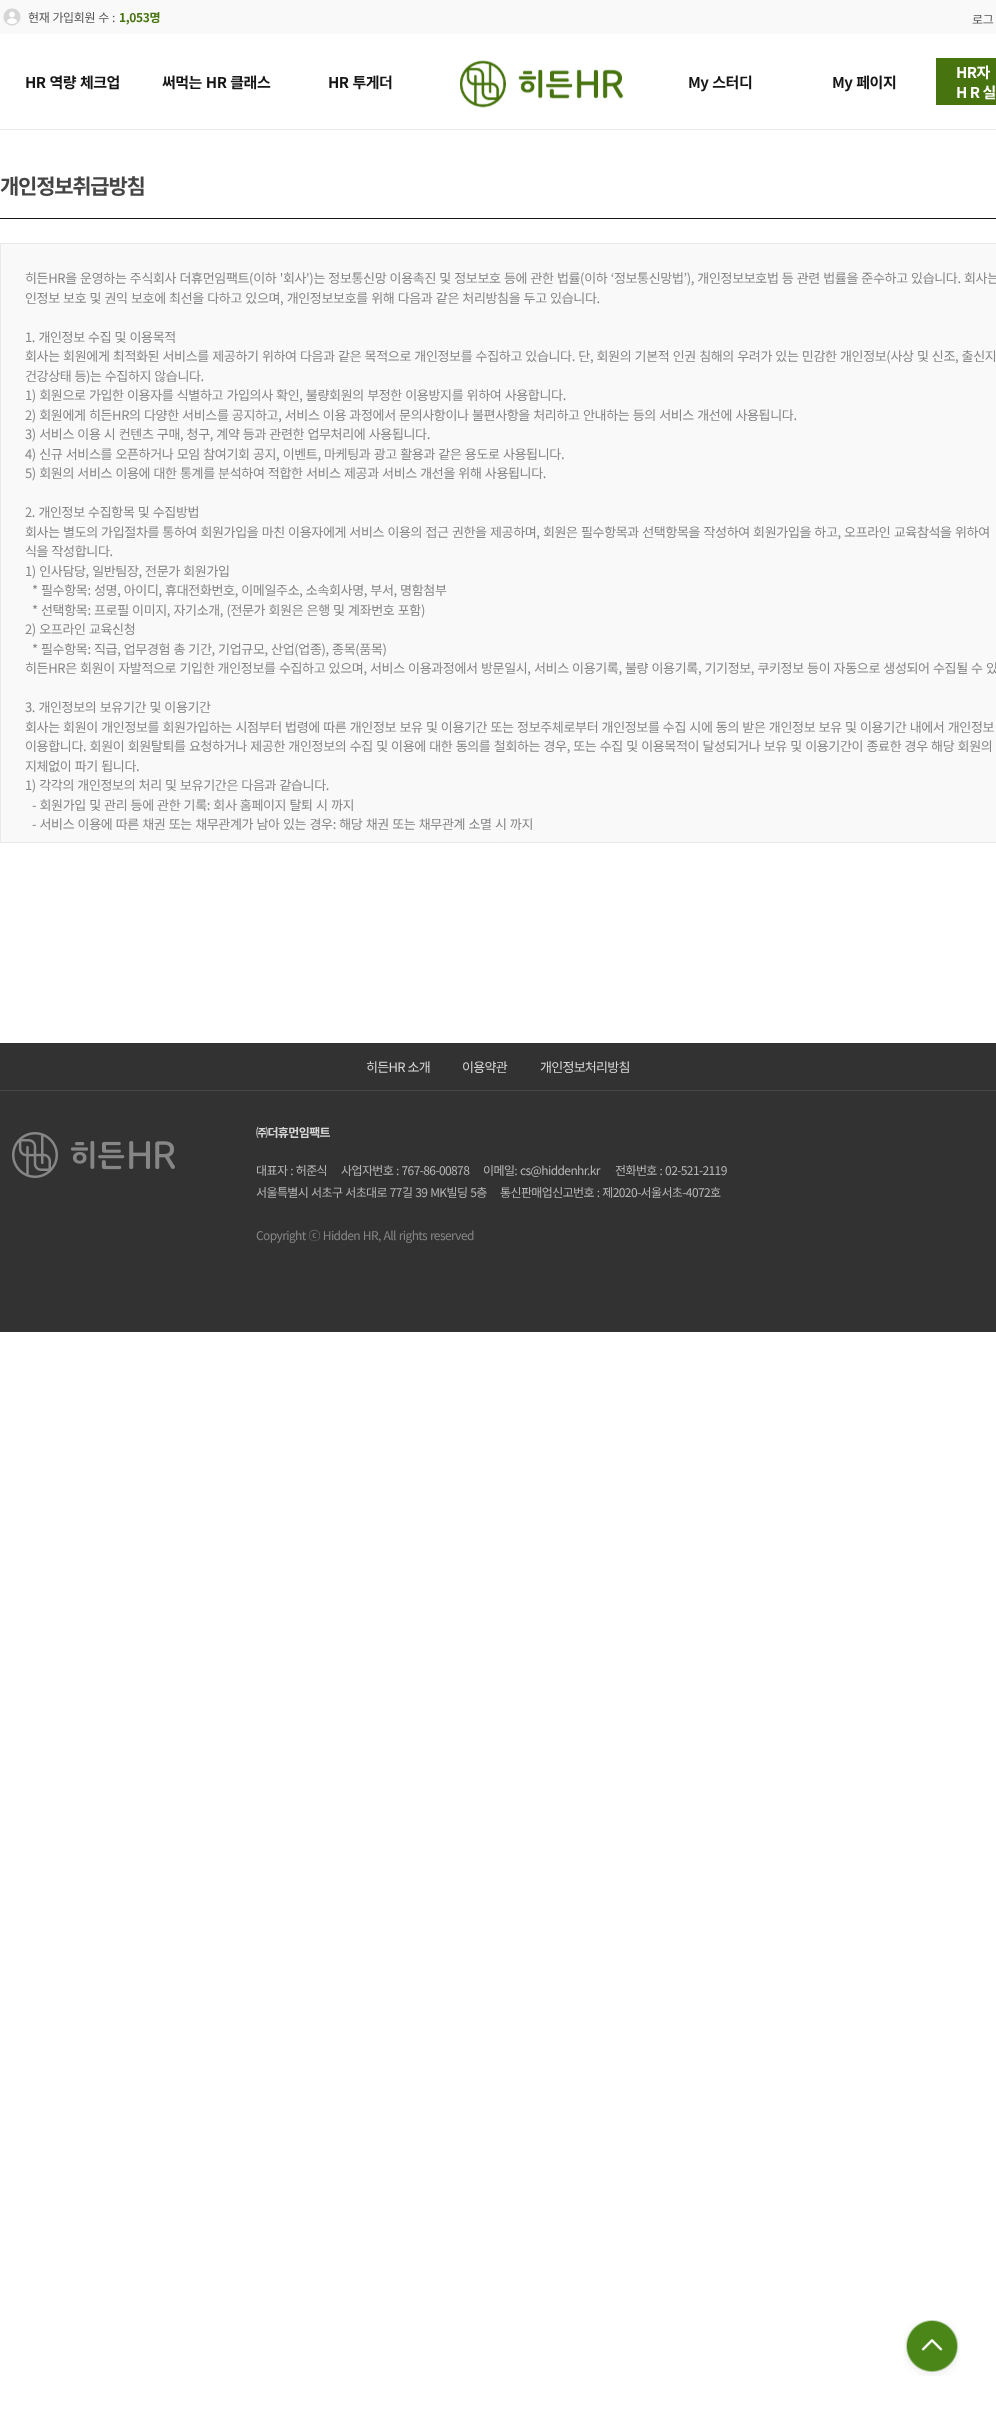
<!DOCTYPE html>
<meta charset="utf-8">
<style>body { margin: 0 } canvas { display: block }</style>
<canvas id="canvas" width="996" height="2412"></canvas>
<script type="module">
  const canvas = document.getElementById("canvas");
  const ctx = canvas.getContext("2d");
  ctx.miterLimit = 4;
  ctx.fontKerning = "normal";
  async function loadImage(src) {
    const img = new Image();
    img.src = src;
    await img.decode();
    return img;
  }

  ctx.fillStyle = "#ffffff";
  ctx.fillRect(0, 0, 996, 2412);
  ctx.fillStyle = "#e9e9e9";
  ctx.fillRect(0, 129, 996, 1);
  ctx.fillStyle = "#f9f9f9";
  ctx.fillRect(0, 0, 996, 34);
  ctx.drawImage(await loadImage("img1.png"), 3, 8, 18, 18);
  ctx.letterSpacing = "-0.36px";
  ctx.wordSpacing = "0.75px";
  ctx.font = "12px Noto Sans KR";
  ctx.fillStyle = "#565656";
  ctx.fillText("현재 가입회원 수 :", 28, 22);
  ctx.wordSpacing = "0px";
  ctx.font = "bold 12px Noto Sans KR";
  ctx.fillStyle = "#47740e";
  ctx.fillText("1,053명", 119, 22);
  ctx.font = "12px Noto Sans KR";
  ctx.fillStyle = "#565656";
  ctx.fillText("로그", 972, 24);
  ctx.letterSpacing = "-0.5px";
  ctx.wordSpacing = "1px";
  ctx.font = "bold 15px Noto Sans KR";
  ctx.fillStyle = "#161616";
  ctx.fillText("HR 역량 체크업", 25, 88);
  ctx.fillText("써먹는 HR 클래스", 162, 88);
  ctx.fillText("HR 투게더", 328, 88);
  ctx.drawImage(await loadImage("img2.png"), 460, 60, 164, 48);
  ctx.fillText("My 스터디", 688, 88);
  ctx.fillText("My 페이지", 832, 88);
  ctx.fillStyle = "#47740e";
  ctx.fillRect(936, 58, 60, 47);
  ctx.fillStyle = "#ffffff";
  ctx.fillText("HR자", 956, 78);
  ctx.letterSpacing = "2.5px";
  ctx.wordSpacing = "0px";
  ctx.fillText("HR실", 956, 98);
  ctx.fillStyle = "#161616";
  ctx.fillRect(0, 218, 996, 1);
  ctx.letterSpacing = "-1.25px";
  ctx.font = "bold 21px Noto Sans KR";
  ctx.fillStyle = "#464646";
  ctx.fillText("개인정보취급방침", 0, 194);
  ctx.fillStyle = "#f9f9f9";
  ctx.beginPath();
  ctx.rect(0.5, 243.5, 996, 599);
  ctx.fill();
  ctx.strokeStyle = "#e9e9e9";
  ctx.stroke();
  ctx.letterSpacing = "-0.36px";
  ctx.wordSpacing = "0.75px";
  ctx.font = "13px Noto Sans KR";
  ctx.fillStyle = "#868686";
  ctx.fillText("히든HR을 운영하는 주식회사 더휴먼임팩트(이하 '회사')는 정보통신망 이용촉진 및 정보보호 등에 관한 법률(이하 ‘정보통신망법’), 개인정보보호법 등 관련 법률을 준수하고 있습니다. 회사는", 25, 283);
  ctx.fillText("인정보 보호 및 권익 보호에 최선을 다하고 있으며, 개인정보보호를 위해 다음과 같은 처리방침을 두고 있습니다.", 25, 303);
  ctx.fillText("1. 개인정보 수집 및 이용목적", 25, 342);
  ctx.fillText("회사는 회원에게 최적화된 서비스를 제공하기 위하여 다음과 같은 목적으로 개인정보를 수집하고 있습니다. 단, 회원의 기본적 인권 침해의 우려가 있는 민감한 개인정보(사상 및 신조, 출신지", 25, 361);
  ctx.wordSpacing = "0.5px";
  ctx.fillText("건강상태 등)는 수집하지 않습니다.", 25, 381);
  ctx.wordSpacing = "0.75px";
  ctx.fillText("1) 회원으로 가입한 이용자를 식별하고 가입의사 확인, 불량회원의 부정한 이용방지를 위하여 사용합니다.", 25, 400);
  ctx.fillText("2) 회원에게 히든HR의 다양한 서비스를 공지하고, 서비스 이용 과정에서 문의사항이나 불편사항을 처리하고 안내하는 등의 서비스 개선에 사용됩니다.", 25, 420);
  ctx.fillText("3) 서비스 이용 시 컨텐츠 구매, 청구, 계약 등과 관련한 업무처리에 사용됩니다.", 25, 439);
  ctx.fillText("4) 신규 서비스를 오픈하거나 모임 참여기회 공지, 이벤트, 마케팅과 광고 활용과 같은 용도로 사용됩니다.", 25, 459);
  ctx.fillText("5) 회원의 서비스 이용에 대한 통계를 분석하여 적합한 서비스 제공과 서비스 개선을 위해 사용됩니다.", 25, 478);
  ctx.fillText("2. 개인정보 수집항목 및 수집방법", 25, 517);
  ctx.wordSpacing = "0.7px";
  ctx.fillText("회사는 별도의 가입절차를 통하여 회원가입을 마친 이용자에게 서비스 이용의 접근 권한을 제공하며, 회원은 필수항목과 선택항목을 작성하여 회원가입을 하고, 오프라인 교육참석을 위하여", 25, 537);
  ctx.wordSpacing = "0.75px";
  ctx.fillText("식을 작성합니다.", 25, 556);
  ctx.fillText("1) 인사담당, 일반팀장, 전문가 회원가입", 25, 576);
  ctx.fillText("* 필수항목: 성명, 아이디, 휴대전화번호, 이메일주소, 소속회사명, 부서, 명함첨부", 32, 595);
  ctx.fillText("* 선택항목: 프로필 이미지, 자기소개, (전문가 회원은 은행 및 계좌번호 포함)", 32, 615);
  ctx.fillText("2) 오프라인 교육신청", 25, 634);
  ctx.fillText("* 필수항목: 직급, 업무경험 총 기간, 기업규모, 산업(업종), 종목(품목)", 32, 654);
  ctx.fillText("히든HR은 회원이 자발적으로 기입한 개인정보를 수집하고 있으며, 서비스 이용과정에서 방문일시, 서비스 이용기록, 불량 이용기록, 기기정보, 쿠키정보 등이 자동으로 생성되어 수집될 수 있", 25, 673);
  ctx.fillText("3. 개인정보의 보유기간 및 이용기간", 25, 712);
  ctx.fillText("회사는 회원이 개인정보를 회원가입하는 시점부터 법령에 따른 개인정보 보유 및 이용기간 또는 정보주체로부터 개인정보를 수집 시에 동의 받은 개인정보 보유 및 이용기간 내에서 개인정보", 25, 732);
  ctx.fillText("이용합니다. 회원이 회원탈퇴를 요청하거나 제공한 개인정보의 수집 및 이용에 대한 동의를 철회하는 경우, 또는 수집 및 이용목적이 달성되거나 보유 및 이용기간이 종료한 경우 해당 회원의", 25, 751);
  ctx.fillText("지체없이 파기 됩니다.", 25, 771);
  ctx.fillText("1) 각각의 개인정보의 처리 및 보유기간은 다음과 같습니다.", 25, 790);
  ctx.fillText("- 회원가입 및 관리 등에 관한 기록: 회사 홈페이지 탈퇴 시 까지", 32, 810);
  ctx.fillText("- 서비스 이용에 따른 채권 또는 채무관계가 남아 있는 경우: 해당 채권 또는 채무관계 소멸 시 까지", 32, 829);
  ctx.fillStyle = "#323232";
  ctx.fillRect(0, 1043, 996, 289);
  ctx.fillStyle = "#474747";
  ctx.fillRect(0, 1090, 996, 1);
  ctx.letterSpacing = "-0.75px";
  ctx.fillStyle = "#d6d6d6";
  ctx.fillText("히든HR 소개", 366, 1072);
  ctx.wordSpacing = "0px";
  ctx.fillText("이용약관", 462, 1072);
  ctx.fillText("개인정보처리방침", 540, 1072);
  ctx.drawImage(await loadImage("img3.png"), 12, 1132, 163, 46);
  ctx.letterSpacing = "-0.6px";
  ctx.font = "bold 12px Noto Sans KR";
  ctx.fillText("㈜더휴먼임팩트", 256, 1137);
  ctx.wordSpacing = "0.75px";
  ctx.font = "12px Noto Sans KR";
  ctx.fillStyle = "#b6b6b6";
  ctx.fillText("대표자 : 허준식", 256, 1175);
  ctx.wordSpacing = "0.7px";
  ctx.fillText("사업자번호 : 767-86-00878", 341, 1175);
  ctx.wordSpacing = "0px";
  ctx.fillText("이메일:", 483, 1175);
  ctx.fillText("cs@hiddenhr.kr", 520, 1175);
  ctx.wordSpacing = "0.7px";
  ctx.fillText("전화번호 : 02-521-2119", 615, 1175);
  ctx.wordSpacing = "0.75px";
  ctx.fillText("서울특별시 서초구 서초대로 77길 39 MK빌딩 5층", 256, 1197);
  ctx.wordSpacing = "0.7px";
  ctx.fillText("통신판매업신고번호 : 제2020-서울서초-4072호", 500, 1197);
  ctx.wordSpacing = "0.75px";
  ctx.fillStyle = "#868686";
  ctx.fillText("Copyright ⓒ Hidden HR, All rights reserved", 256, 1240);
  ctx.drawImage(await loadImage("img4.png"), 904, 2320, 56, 56);
</script>
